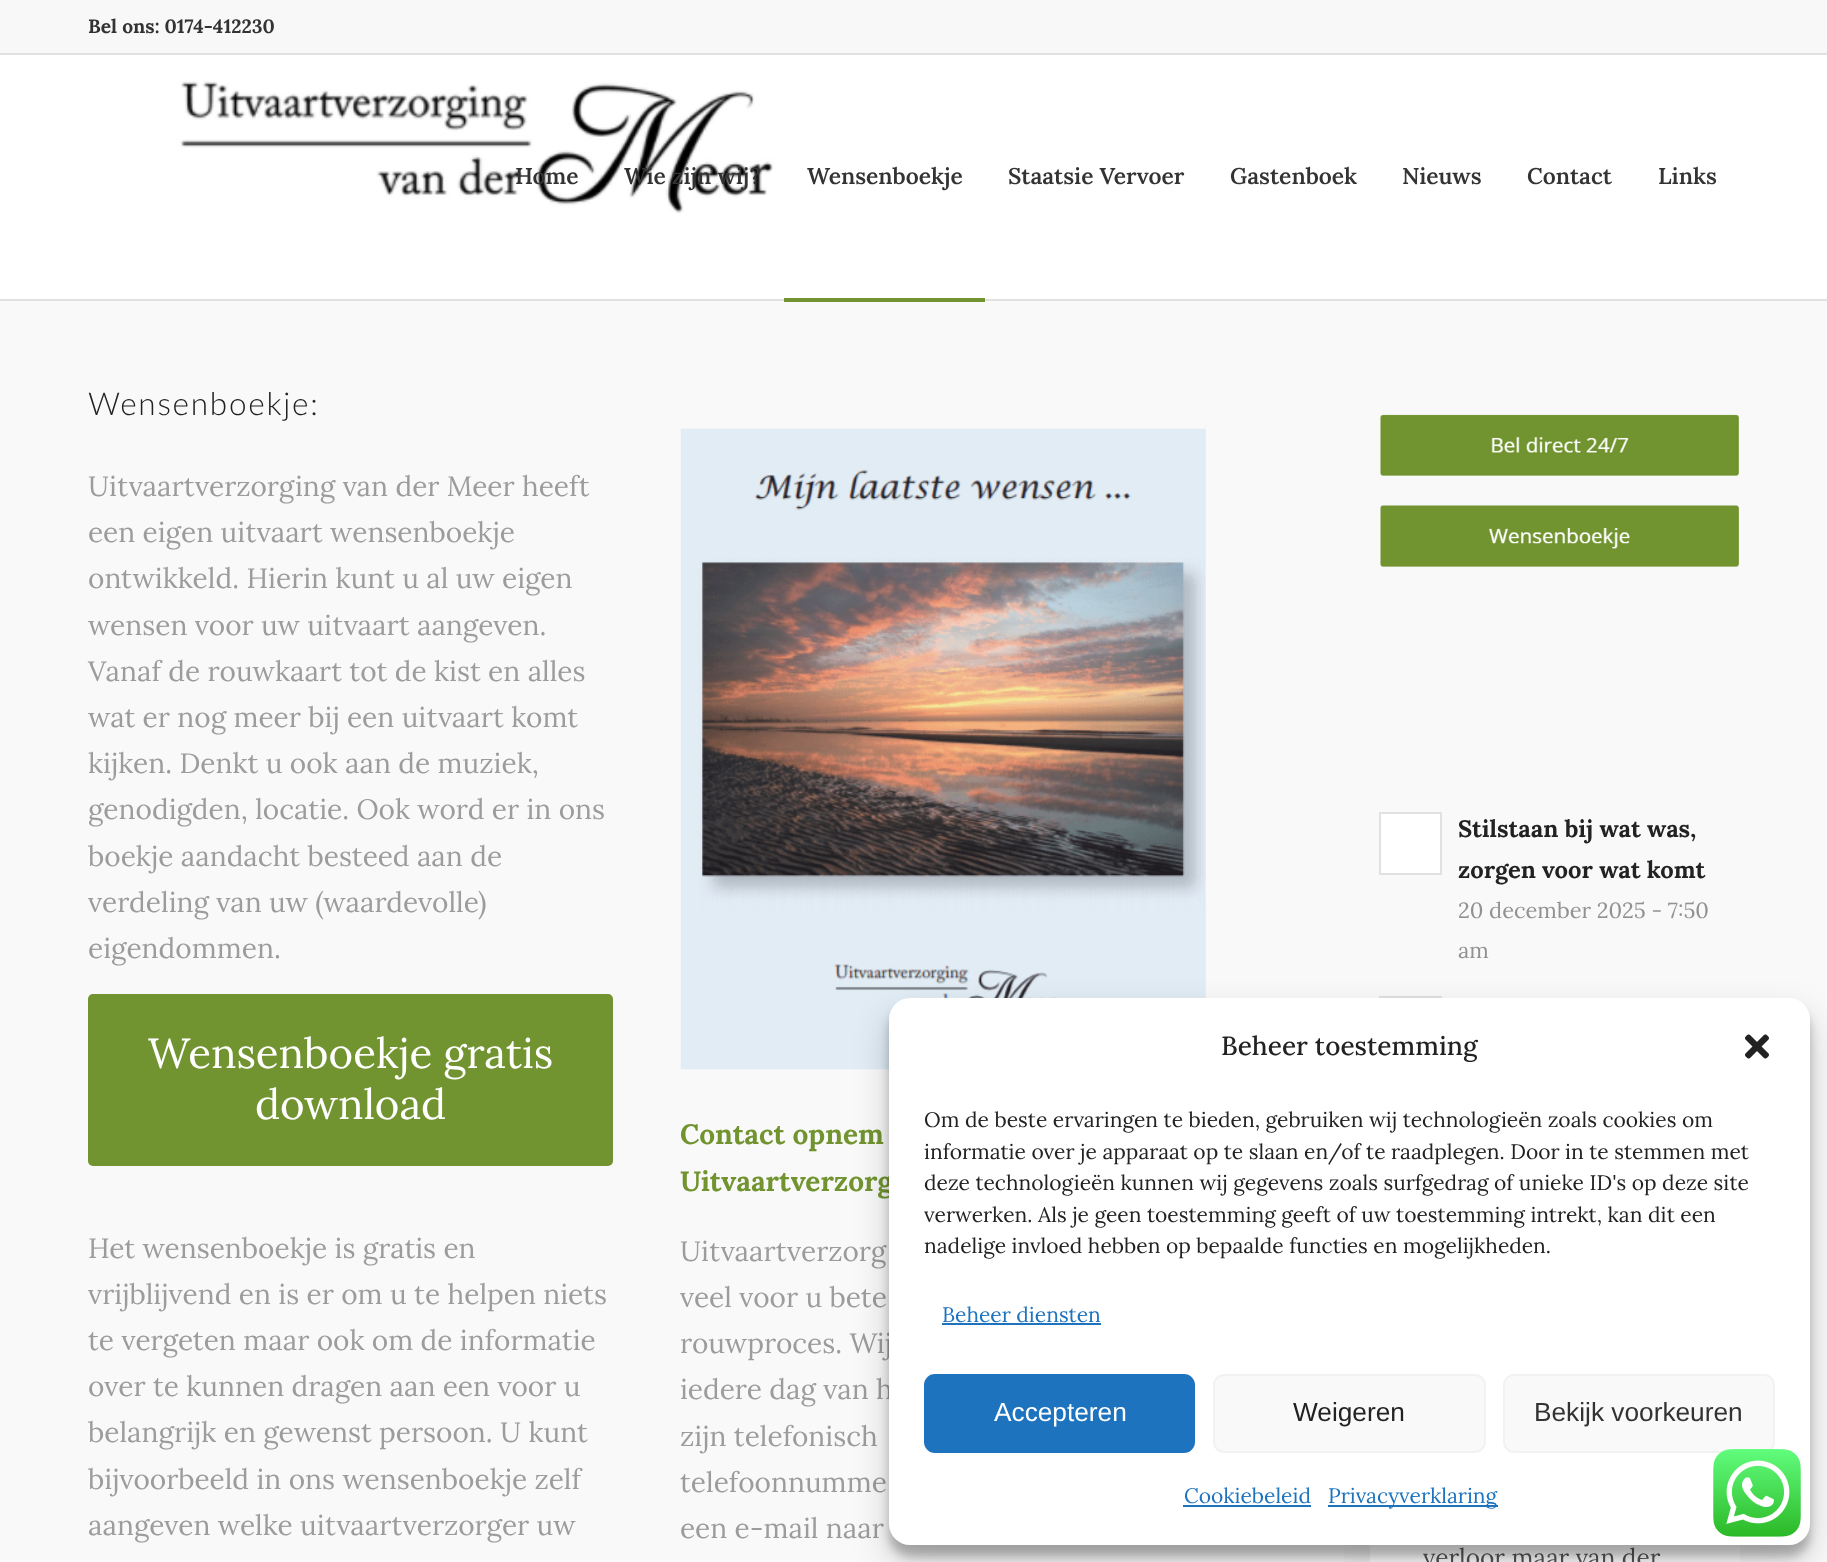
<!DOCTYPE html>
<meta charset="utf-8">
<style>body { margin: 0 } canvas { display: block }</style>
<canvas id="canvas" width="1827" height="1562"></canvas>
<script type="module">
  const canvas = document.getElementById("canvas");
  const ctx = canvas.getContext("2d");
  ctx.miterLimit = 4;
  ctx.fontKerning = "normal";
  async function loadImage(src) {
    const img = new Image();
    img.src = src;
    await img.decode();
    return img;
  }

  ctx.fillStyle = "#ffffff";
  ctx.fillRect(0, 0, 1827, 1562);
  ctx.fillStyle = "#f8f8f8";
  ctx.fillRect(0, 0, 1827, 53);
  ctx.fillStyle = "#e1e1e1";
  ctx.fillRect(0, 53, 1827, 2);
  ctx.font = "bold 19.25px Lora";
  ctx.fillStyle = "#333333";
  ctx.fillText("Bel ons: 0174-412230", 88, 33);
  ctx.drawImage(await loadImage("img1.png"), 87, 55, 778, 159);
  ctx.font = "600 22.75px Lora";
  ctx.fillText("Home", 515, 184);
  ctx.fillText("Wie zijn wij?", 624, 184);
  ctx.fillText("Wensenboekje", 807, 184);
  ctx.fillStyle = "#e1e1e1";
  ctx.fillRect(0, 298, 1827, 3);
  ctx.fillStyle = "rgba(255, 255, 255, 0.95)";
  ctx.fillRect(0, 298, 1827, 1);
  ctx.fillStyle = "#f9f9f9";
  ctx.fillRect(0, 301, 1827, 1261);
  ctx.fillStyle = "#719430";
  ctx.fillRect(784, 298, 201, 4);
  ctx.fillStyle = "#333333";
  ctx.fillText("Staatsie Vervoer", 1008, 184);
  ctx.fillText("Gastenboek", 1230, 184);
  ctx.fillText("Nieuws", 1402, 184);
  ctx.fillText("Contact", 1527, 184);
  ctx.fillText("Links", 1658, 184);
  ctx.letterSpacing = "1.75px";
  ctx.font = "300 31.5px Lato";
  ctx.fillStyle = "#222222";
  ctx.fillText("Wensenboekje:", 88, 415);
  ctx.letterSpacing = "0px";
  ctx.font = "28px Lora";
  ctx.fillStyle = "#9c9c9c";
  ctx.fillText("Uitvaartverzorging van der Meer heeft", 88, 496);
  ctx.fillText("een eigen uitvaart wensenboekje", 88, 542);
  ctx.fillText("ontwikkeld. Hierin kunt u al uw eigen", 88, 588);
  ctx.fillText("wensen voor uw uitvaart aangeven.", 88, 635);
  ctx.fillText("Vanaf de rouwkaart tot de kist en alles", 88, 681);
  ctx.fillText("wat er nog meer bij een uitvaart komt", 88, 727);
  ctx.fillText("kijken. Denkt u ook aan de muziek,", 88, 773);
  ctx.fillText("genodigden, locatie. Ook word er in ons", 88, 819);
  ctx.fillText("boekje aandacht besteed aan de", 88, 866);
  ctx.fillText("verdeling van uw (waardevolle)", 88, 912);
  ctx.fillText("eigendommen.", 88, 958);
  ctx.fillStyle = "#719430";
  ctx.beginPath();
  ctx.roundRect(88, 994, 525, 172, 5);
  ctx.fill();
  ctx.font = "42px Lora";
  ctx.fillStyle = "#ffffff";
  ctx.fillText("Wensenboekje gratis", 148, 1068);
  ctx.fillText("download", 255, 1119);
  ctx.font = "28px Lora";
  ctx.fillStyle = "#9c9c9c";
  ctx.fillText("Het wensenboekje is gratis en", 88, 1258);
  ctx.fillText("vrijblijvend en is er om u te helpen niets", 88, 1304);
  ctx.fillText("te vergeten maar ook om de informatie", 88, 1350);
  ctx.fillText("over te kunnen dragen aan een voor u", 88, 1396);
  ctx.fillText("belangrijk en gewenst persoon. U kunt", 88, 1442);
  ctx.fillText("bijvoorbeeld in ons wensenboekje zelf", 88, 1489);
  ctx.fillText("aangeven welke uitvaartverzorger uw", 88, 1535);
  ctx.drawImage(await loadImage("img2.png"), 680, 428, 526, 642);
  ctx.font = "bold 28px Lora";
  ctx.fillStyle = "#719430";
  ctx.fillText("Contact opnem", 680, 1144);
  ctx.fillText("Uitvaartverzorg", 680, 1191);
  ctx.font = "28px Lora";
  ctx.fillStyle = "#9c9c9c";
  ctx.fillText("Uitvaartverzorg", 680, 1261);
  ctx.fillText("veel voor u bete", 680, 1307);
  ctx.fillText("rouwproces. Wij", 680, 1353);
  ctx.fillText("iedere dag van h", 680, 1399);
  ctx.fillText("zijn telefonisch", 680, 1446);
  ctx.fillText("telefoonnumme", 680, 1492);
  ctx.fillText("een e-mail naar", 680, 1538);
  ctx.drawImage(await loadImage("img3.png"), 1380, 414, 359, 62);
  ctx.drawImage(await loadImage("img4.png"), 1380, 505, 359, 62);
  ctx.fillStyle = "#ffffff";
  ctx.beginPath();
  ctx.rect(1380, 813, 61, 61);
  ctx.fill();
  ctx.strokeStyle = "#e1e1e1";
  ctx.lineWidth = 2;
  ctx.stroke();
  ctx.font = "bold 23.75px Lora";
  ctx.fillStyle = "#222222";
  ctx.fillText("Stilstaan bij wat was,", 1458, 837);
  ctx.fillText("zorgen voor wat komt", 1458, 878);
  ctx.font = "21.9px Lora";
  ctx.fillStyle = "#919191";
  ctx.fillText("20 december 2025 - 7:50", 1458, 918);
  ctx.fillText("am", 1458, 958);
  ctx.strokeRect(1380, 997, 61, 61);
  ctx.save();
  ctx.beginPath();
  ctx.rect(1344, 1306, 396, 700);
  ctx.clip();
  ctx.fillStyle = "rgba(0, 0, 0, 0.05)";
  ctx.filter = "blur(50px)";
  ctx.beginPath();
  ctx.roundRect(1370, 1358, 378, 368, 14);
  ctx.fill();
  ctx.filter = "none";
  ctx.restore();
  ctx.save();
  ctx.beginPath();
  ctx.rect(1292, 299, 448, 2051);
  ctx.clip();
  ctx.fillStyle = "#ffffff";
  ctx.beginPath();
  ctx.roundRect(1370, 1358, 378, 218, 14);
  ctx.fill();
  ctx.restore();
  ctx.font = "24.5px Lora";
  ctx.fillStyle = "#555555";
  ctx.fillText("verloor maar van der", 1423, 1566);
  ctx.fillStyle = "rgba(0, 0, 0, 0.23)";
  ctx.filter = "blur(5px)";
  ctx.beginPath();
  ctx.roundRect(889, 1008, 921, 548, 21);
  ctx.fill();
  ctx.filter = "none";
  ctx.fillStyle = "rgba(0, 0, 0, 0.19)";
  ctx.filter = "blur(17.5px)";
  ctx.beginPath();
  ctx.roundRect(889, 1015, 921, 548, 21);
  ctx.fill();
  ctx.filter = "none";
  ctx.fillStyle = "#ffffff";
  ctx.beginPath();
  ctx.roundRect(889, 998, 921, 547, 21);
  ctx.fill();
  ctx.font = "500 26.25px Lora";
  ctx.fillStyle = "#222222";
  ctx.fillText("Beheer toestemming", 1221, 1055);
  ctx.drawImage(await loadImage("img5.png"), 1745, 1034, 24, 25);
  ctx.font = "21px Lora";
  ctx.fillText("Om de beste ervaringen te bieden, gebruiken wij technologieën zoals cookies om", 924, 1127);
  ctx.fillText("informatie over je apparaat op te slaan en/of te raadplegen. Door in te stemmen met", 924, 1159);
  ctx.fillText("deze technologieën kunnen wij gegevens zoals surfgedrag of unieke ID's op deze site", 924, 1190);
  ctx.fillText("verwerken. Als je geen toestemming geeft of uw toestemming intrekt, kan dit een", 924, 1222);
  ctx.fillText("nadelige invloed hebben op bepaalde functies en mogelijkheden.", 924, 1253);
  ctx.fillStyle = "#1e73be";
  ctx.fillText("Beheer diensten", 942, 1322);
  ctx.fillRect(942, 1323, 159, 2);
  ctx.beginPath();
  ctx.roundRect(925, 1375, 269, 77, 10);
  ctx.fill();
  ctx.strokeStyle = "#1e73be";
  ctx.stroke();
  ctx.font = "26.25px Liberation Sans";
  ctx.fillStyle = "#ffffff";
  ctx.fillText("Accepteren", 994, 1421);
  ctx.fillStyle = "#f9f9f9";
  ctx.beginPath();
  ctx.roundRect(1214, 1375, 271, 77, 10);
  ctx.fill();
  ctx.strokeStyle = "#f2f2f2";
  ctx.stroke();
  ctx.fillStyle = "#222222";
  ctx.fillText("Weigeren", 1293, 1421);
  ctx.fillStyle = "#f9f9f9";
  ctx.beginPath();
  ctx.roundRect(1504, 1375, 270, 77, 10);
  ctx.fill();
  ctx.stroke();
  ctx.fillStyle = "#333333";
  ctx.fillText("Bekijk voorkeuren", 1534, 1421);
  ctx.font = "21px Lora";
  ctx.fillStyle = "#1e73be";
  ctx.fillText("Cookiebeleid", 1184, 1503);
  ctx.fillRect(1183, 1505, 128, 2);
  ctx.fillRect(1328, 1505, 170, 2);
  ctx.fillText("Privacyverklaring", 1328, 1503);
  ctx.drawImage(await loadImage("img6.png"), 1713, 1449, 88, 88);
</script>
